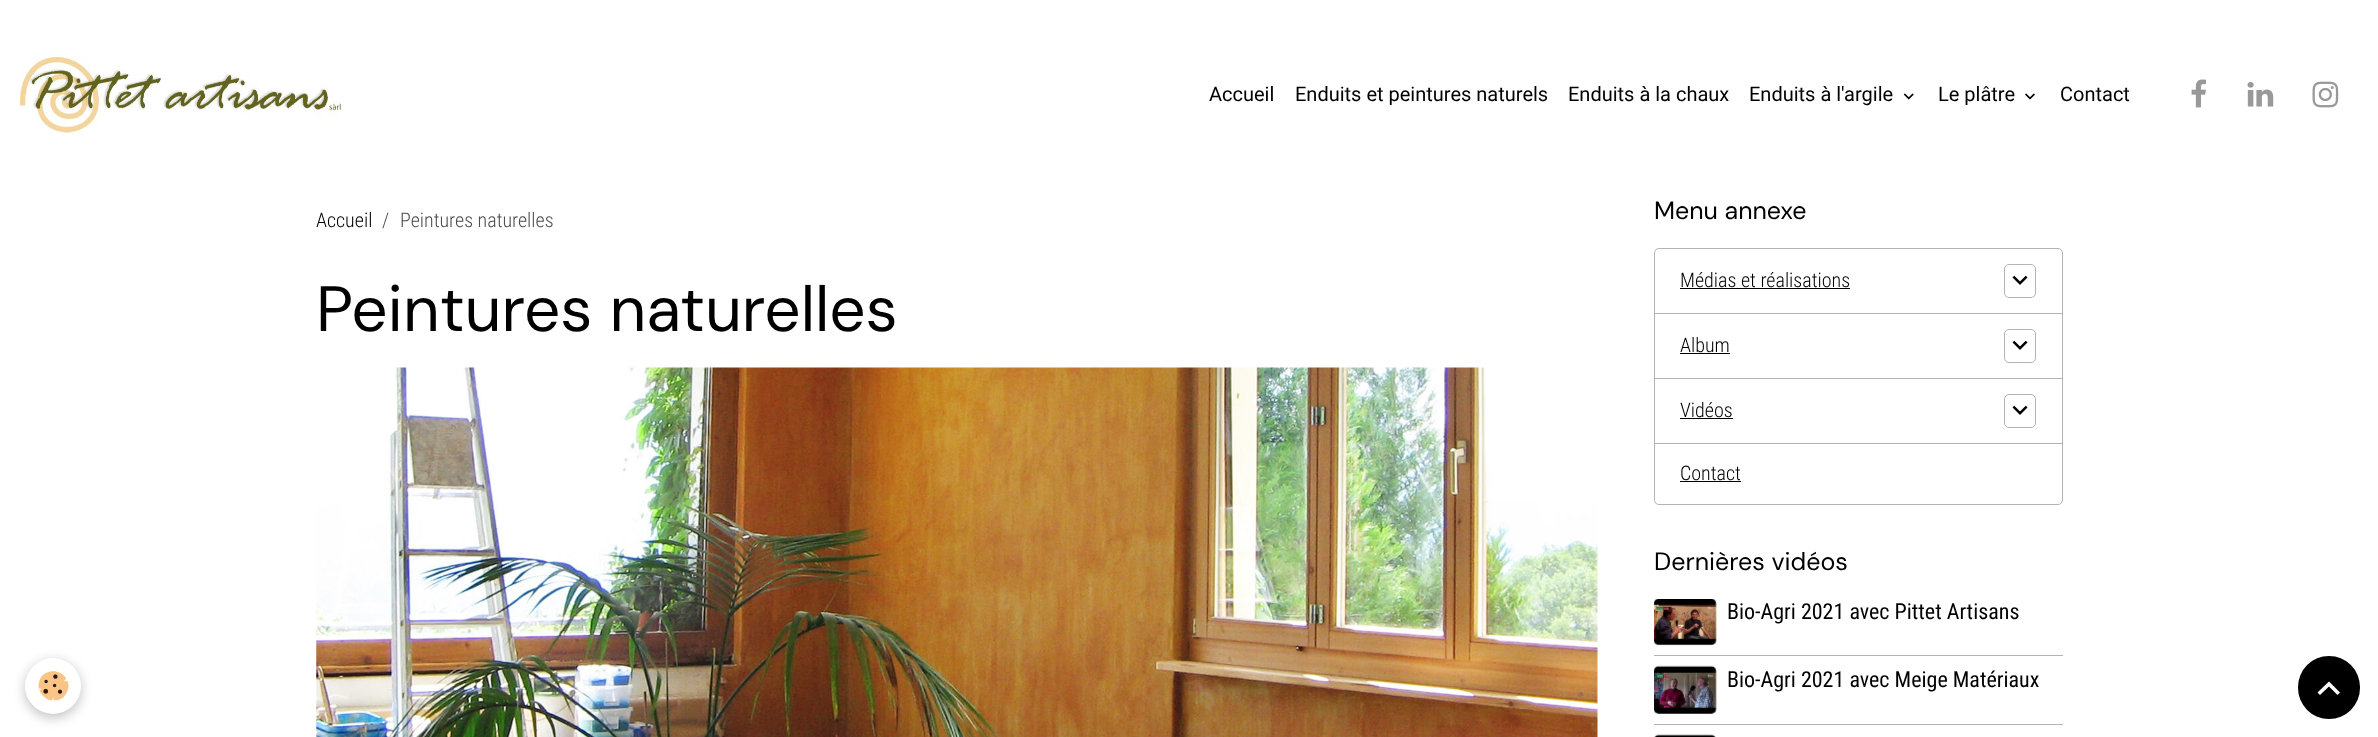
<!DOCTYPE html>
<meta charset="utf-8">
<style>body { margin: 0 } canvas { display: block }</style>
<canvas id="canvas" width="2378" height="737"></canvas>
<script type="module">
  const canvas = document.getElementById("canvas");
  const ctx = canvas.getContext("2d");
  ctx.miterLimit = 4;
  ctx.fontKerning = "normal";
  async function loadImage(src) {
    const img = new Image();
    img.src = src;
    await img.decode();
    return img;
  }

  ctx.fillStyle = "#ffffff";
  ctx.fillRect(0, 0, 2378, 737);
  ctx.drawImage(await loadImage("img1.png"), 20, 57, 321, 76);
  ctx.font = "20px Roboto";
  ctx.fillStyle = "#000000";
  ctx.fillText("Accueil", 1209, 101);
  ctx.fillText("Enduits et peintures naturels", 1295, 101);
  ctx.fillText("Enduits à la chaux", 1568, 101);
  ctx.fillText("Enduits à l'argile", 1749, 101);
  ctx.drawImage(await loadImage("img2.png"), 1903, 93, 11, 7);
  ctx.fillText("Le plâtre", 1938, 101);
  ctx.drawImage(await loadImage("img3.png"), 2025, 93, 10, 7);
  ctx.fillText("Contact", 2060, 101);
  ctx.drawImage(await loadImage("img4.png"), 2191, 79, 15, 29);
  ctx.drawImage(await loadImage("img5.png"), 2247, 82, 27, 25);
  ctx.drawImage(await loadImage("img6.png"), 2312, 81, 27, 27);
  ctx.fillStyle = "rgba(0, 0, 0, 0.24)";
  ctx.filter = "blur(6px)";
  ctx.beginPath();
  ctx.roundRect(25, 661, 56, 57, 28);
  ctx.fill();
  ctx.filter = "none";
  ctx.fillStyle = "#ffffff";
  ctx.beginPath();
  ctx.arc(53, 686, 28, 0, Math.PI * 2);
  ctx.fill();
  ctx.drawImage(await loadImage("img7.png"), 38, 671, 31, 30);
  ctx.font = "300 20px Roboto Condensed";
  ctx.fillStyle = "#000000";
  ctx.fillText("Accueil", 316, 227);
  ctx.fillStyle = "#4d4d4d";
  ctx.fillText("/", 382, 227);
  ctx.fillText("Peintures naturelles", 400, 227);
  ctx.font = "64px DM Sans";
  ctx.fillStyle = "#000000";
  ctx.fillText("Peintures naturelles", 316, 331);
  ctx.drawImage(await loadImage("img8.png"), 316, 367, 1282, 370);
  ctx.font = "25px DM Sans";
  ctx.fillText("Menu annexe", 1654, 219);
  ctx.beginPath();
  ctx.roundRect(1654.5, 248.5, 408, 65, [4.5, 4.5, 0, 0]);
  ctx.strokeStyle = "#b3b3b3";
  ctx.stroke();
  ctx.font = "300 20px Roboto Condensed";
  ctx.fillText("Médias et réalisations", 1680, 287);
  ctx.fillRect(1680, 288, 170, 1);
  ctx.beginPath();
  ctx.roundRect(2004.5, 264.5, 31, 33, 4.5);
  ctx.stroke();
  ctx.drawImage(await loadImage("img9.png"), 2012, 275, 16, 10);
  ctx.strokeRect(1654.5, 313.5, 408, 65);
  ctx.fillText("Album", 1680, 352);
  ctx.fillRect(1680, 353, 50, 1);
  ctx.beginPath();
  ctx.roundRect(2004.5, 329.5, 31, 33, 4.5);
  ctx.stroke();
  ctx.drawImage(await loadImage("img9.png"), 2012, 340, 16, 10);
  ctx.strokeRect(1654.5, 378.5, 408, 65);
  ctx.fillText("Vidéos", 1680, 417);
  ctx.fillRect(1680, 418, 53, 1);
  ctx.beginPath();
  ctx.roundRect(2004.5, 394.5, 31, 33, 4.5);
  ctx.stroke();
  ctx.drawImage(await loadImage("img9.png"), 2012, 405, 16, 10);
  ctx.beginPath();
  ctx.roundRect(1654.5, 443.5, 408, 61, [0, 0, 4.5, 4.5]);
  ctx.stroke();
  ctx.fillText("Contact", 1680, 480);
  ctx.fillRect(1680, 481, 61, 1);
  ctx.font = "25px DM Sans";
  ctx.fillText("Dernières vidéos", 1654, 570);
  ctx.drawImage(await loadImage("img10.png"), 1654, 599, 63, 47);
  ctx.font = "22px Roboto Condensed";
  ctx.fillText("Bio-Agri 2021 avec Pittet Artisans", 1727, 619);
  ctx.fillStyle = "#b3b3b3";
  ctx.fillRect(1654, 655, 409, 1);
  ctx.drawImage(await loadImage("img11.png"), 1654, 665, 63, 49);
  ctx.fillStyle = "#000000";
  ctx.fillText("Bio-Agri 2021 avec Meige Matériaux", 1727, 687);
  ctx.fillStyle = "#b3b3b3";
  ctx.fillRect(1654, 724, 409, 1);
  ctx.drawImage(await loadImage("img12.png"), 1654, 734, 62, 3);
  ctx.fillStyle = "#000000";
  ctx.beginPath();
  ctx.roundRect(2298, 656, 62, 63, 31);
  ctx.fill();
  ctx.fillStyle = "#ffffff";
  ctx.beginPath();
  ctx.moveTo(2329, 681.5);
  ctx.lineTo(2340, 692.5);
  ctx.lineTo(2337.5, 695);
  ctx.lineTo(2329, 686.5);
  ctx.lineTo(2320, 695);
  ctx.lineTo(2317.5, 692.5);
  ctx.closePath();
  ctx.fill();
</script>
